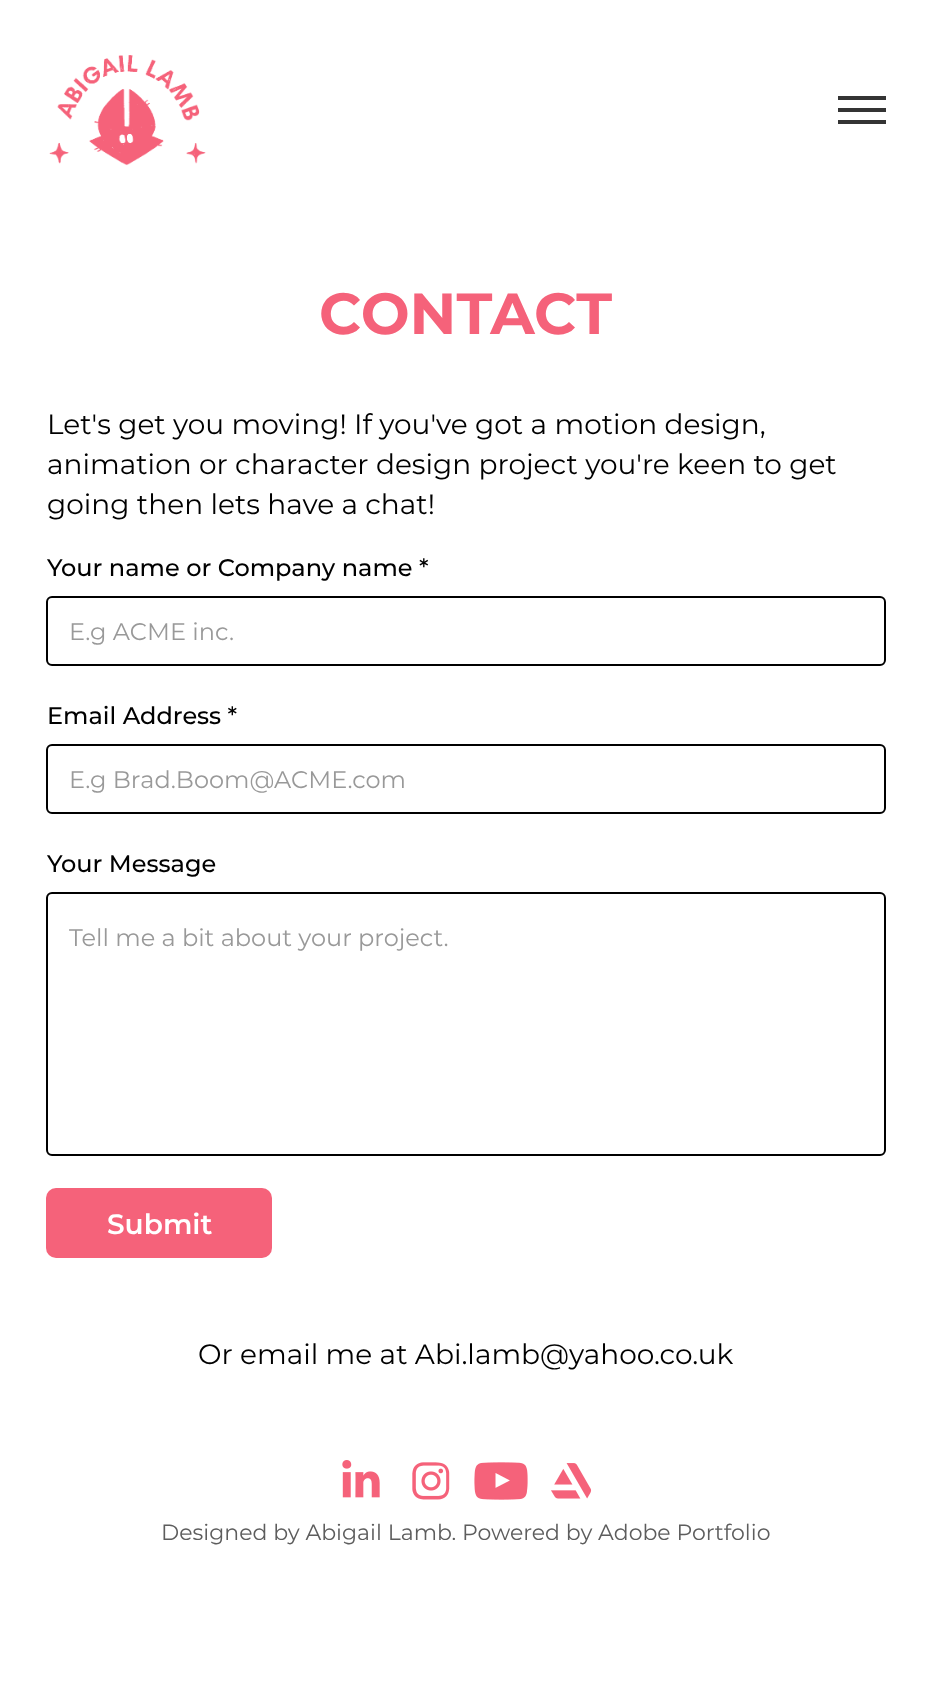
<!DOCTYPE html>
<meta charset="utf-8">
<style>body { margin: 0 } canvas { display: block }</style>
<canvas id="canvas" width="931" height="1693"></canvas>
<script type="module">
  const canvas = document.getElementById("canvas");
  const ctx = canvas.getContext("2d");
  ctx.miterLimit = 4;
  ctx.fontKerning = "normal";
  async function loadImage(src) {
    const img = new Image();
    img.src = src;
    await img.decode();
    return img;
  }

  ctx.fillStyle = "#ffffff";
  ctx.fillRect(0, 0, 931, 1693);
  ctx.drawImage(await loadImage("img1.png"), 49, 55, 157, 111);
  ctx.fillStyle = "#343434";
  ctx.fillRect(838, 96, 48, 4);
  ctx.fillRect(838, 108, 48, 4);
  ctx.fillRect(838, 120, 48, 4);
  ctx.font = "bold 58px Montserrat";
  ctx.fillStyle = "#f5627a";
  ctx.fillText("CONTACT", 319, 334);
  ctx.font = "28px Montserrat";
  ctx.fillStyle = "#000000";
  ctx.fillText("Let's get you moving! If you've got a motion design,", 47, 434);
  ctx.fillText("animation or character design project you're keen to get", 47, 474);
  ctx.fillText("going then lets have a chat!", 47, 514);
  ctx.font = "500 24px Montserrat";
  ctx.fillText("Your name or Company name *", 47, 576);
  ctx.beginPath();
  ctx.roundRect(47, 597, 838, 68, 5);
  ctx.strokeStyle = "#000000";
  ctx.lineWidth = 2;
  ctx.stroke();
  ctx.font = "24px Montserrat";
  ctx.fillStyle = "#999999";
  ctx.fillText("E.g ACME inc.", 69, 640);
  ctx.font = "500 24px Montserrat";
  ctx.fillStyle = "#000000";
  ctx.fillText("Email Address *", 47, 724);
  ctx.beginPath();
  ctx.roundRect(47, 745, 838, 68, 5);
  ctx.stroke();
  ctx.font = "24px Montserrat";
  ctx.fillStyle = "#999999";
  ctx.fillText("E.g Brad.Boom@ACME.com", 69, 788);
  ctx.font = "500 24px Montserrat";
  ctx.fillStyle = "#000000";
  ctx.fillText("Your Message", 47, 872);
  ctx.beginPath();
  ctx.roundRect(47, 893, 838, 262, 5);
  ctx.stroke();
  ctx.font = "24px Montserrat";
  ctx.fillStyle = "#999999";
  ctx.fillText("Tell me a bit about your project.", 69, 946);
  ctx.fillStyle = "#f5627a";
  ctx.beginPath();
  ctx.roundRect(46, 1188, 226, 70, 10);
  ctx.fill();
  ctx.font = "600 28px Montserrat";
  ctx.fillStyle = "#ffffff";
  ctx.fillText("Submit", 107, 1234);
  ctx.font = "28px Montserrat";
  ctx.fillStyle = "#000000";
  ctx.fillText("Or email me at Abi.lamb@yahoo.co.uk", 198, 1364);
  ctx.drawImage(await loadImage("img2.png"), 342, 1460, 38, 38);
  ctx.drawImage(await loadImage("img3.png"), 412, 1462, 38, 38);
  ctx.drawImage(await loadImage("img4.png"), 474, 1462, 54, 38);
  ctx.drawImage(await loadImage("img5.png"), 551, 1463, 41, 36);
  ctx.font = "22px Montserrat";
  ctx.fillStyle = "#5d5d5d";
  ctx.fillText("Designed by Abigail Lamb. Powered by Adobe Portfolio", 161, 1540);
</script>
